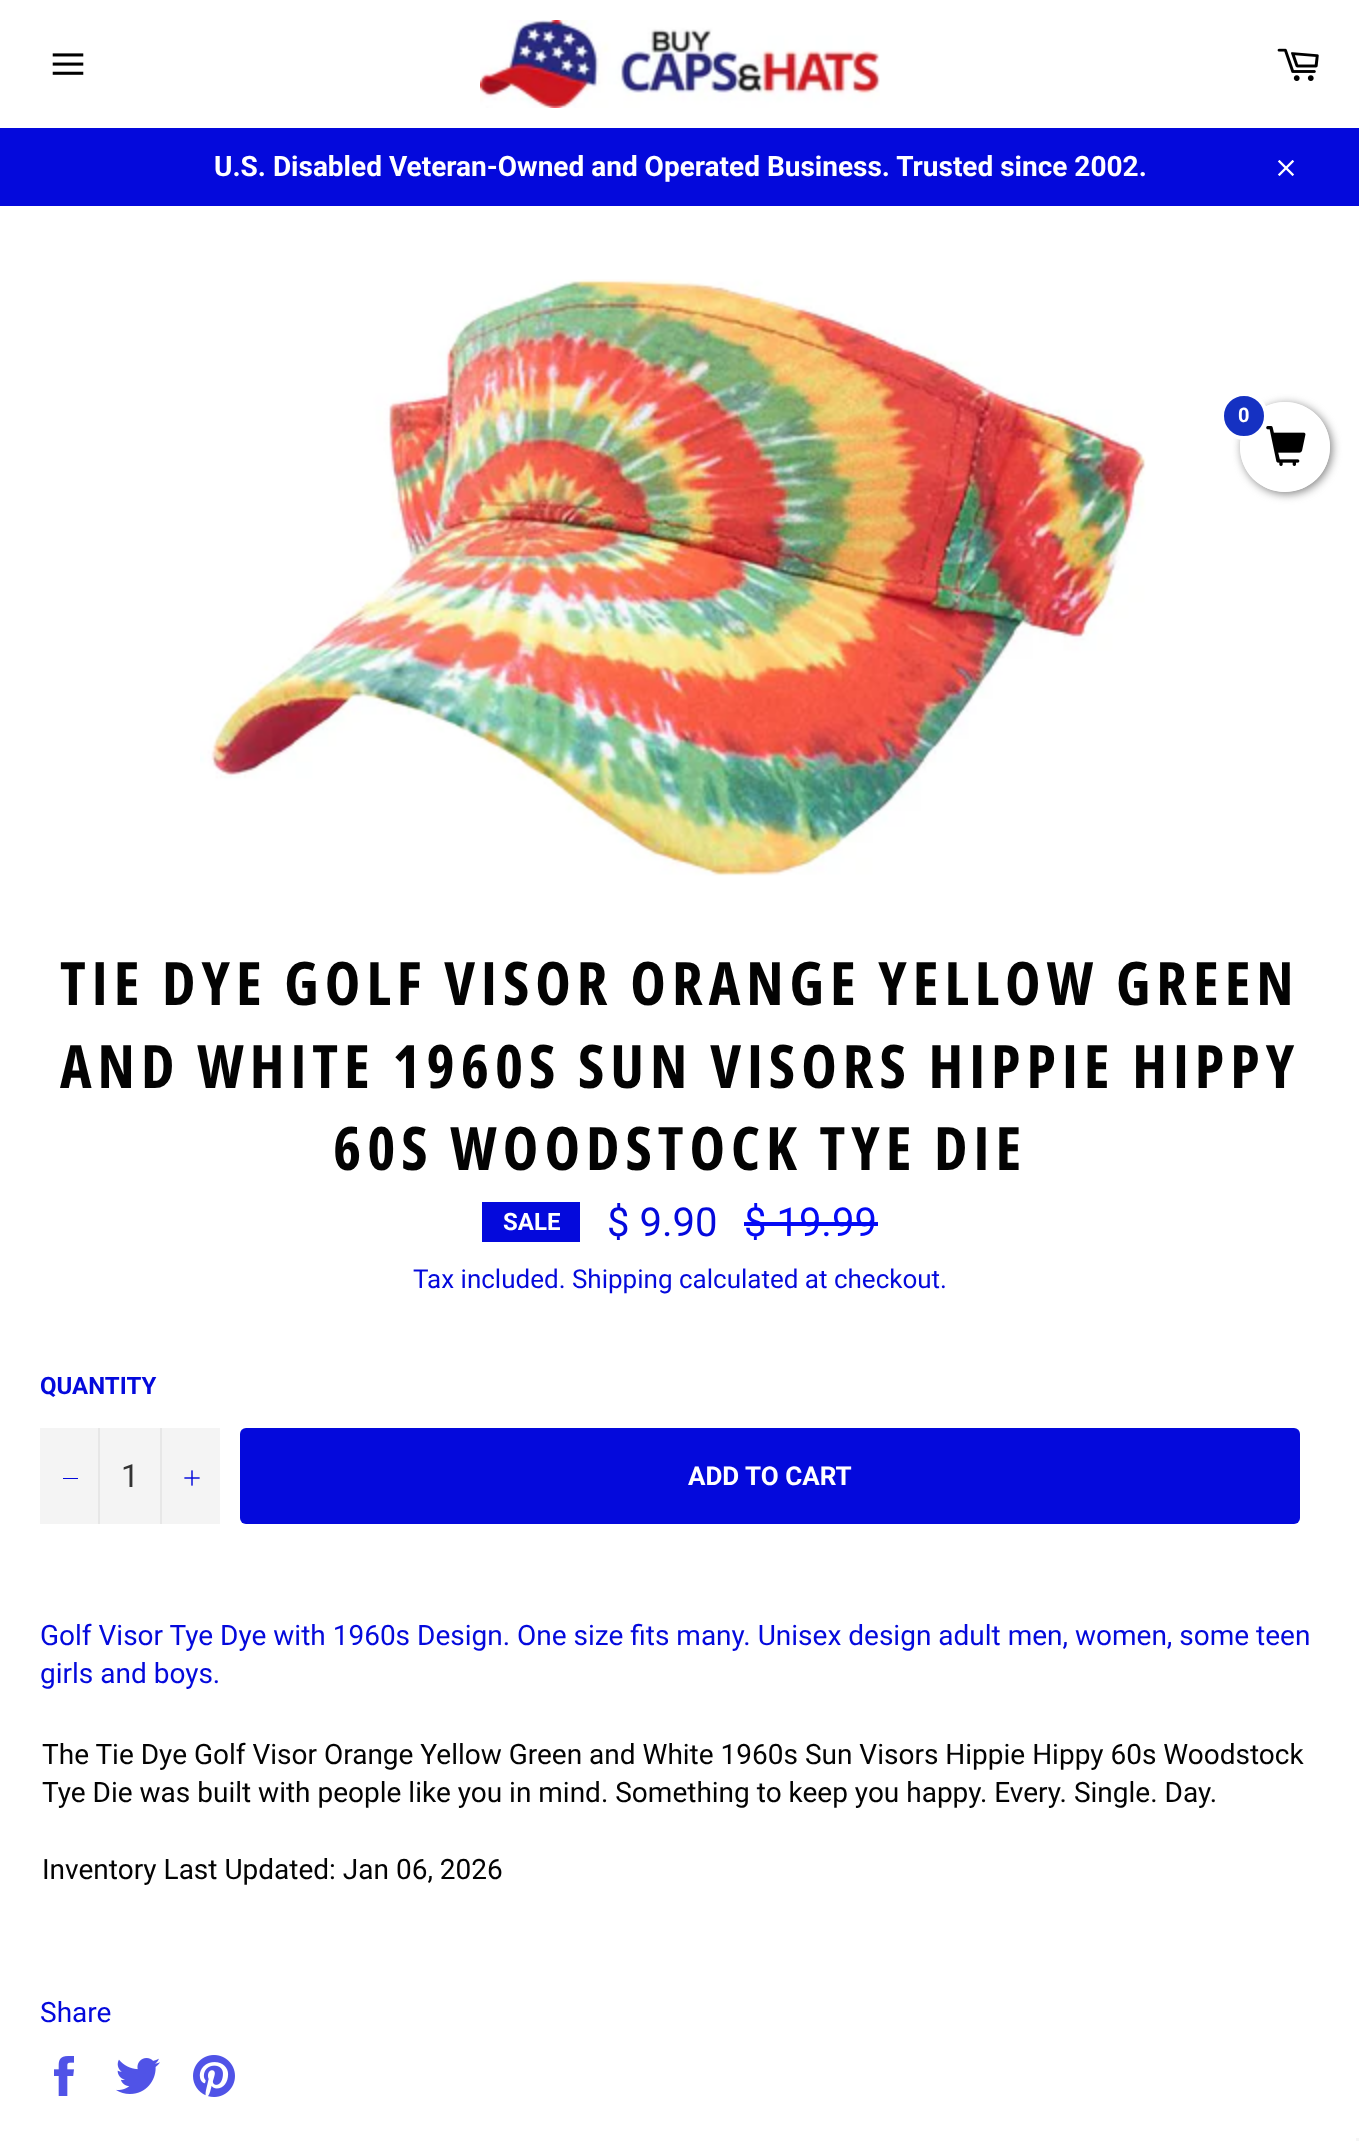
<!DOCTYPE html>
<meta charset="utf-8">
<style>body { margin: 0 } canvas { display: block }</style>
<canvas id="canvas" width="1359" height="2141"></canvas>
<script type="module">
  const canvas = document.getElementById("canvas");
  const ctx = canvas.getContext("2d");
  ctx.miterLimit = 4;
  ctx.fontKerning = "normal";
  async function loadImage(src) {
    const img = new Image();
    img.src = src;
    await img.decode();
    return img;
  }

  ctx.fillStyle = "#ffffff";
  ctx.fillRect(0, 0, 1359, 2141);
  ctx.drawImage(await loadImage("img1.png"), 52, 53, 32, 22);
  ctx.drawImage(await loadImage("img2.png"), 480, 20, 400, 88);
  ctx.drawImage(await loadImage("img3.png"), 1277, 48, 42, 33);
  ctx.fillStyle = "#0409dc";
  ctx.fillRect(0, 128, 1359, 78);
  ctx.font = "bold 28px Roboto";
  ctx.fillStyle = "#ffffff";
  ctx.fillText("U.S. Disabled Veteran-Owned and Operated Business. Trusted since 2002.", 214, 176);
  ctx.drawImage(await loadImage("img4.png"), 1277, 160, 18, 16);
  ctx.save();
  ctx.beginPath();
  ctx.moveTo(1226, 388);
  ctx.lineTo(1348, 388);
  ctx.lineTo(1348, 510);
  ctx.lineTo(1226, 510);
  ctx.closePath();
  ctx.moveTo(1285, 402);
  ctx.bezierCurveTo(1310, 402, 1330, 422, 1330, 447);
  ctx.bezierCurveTo(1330, 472, 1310, 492, 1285, 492);
  ctx.bezierCurveTo(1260, 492, 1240, 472, 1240, 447);
  ctx.bezierCurveTo(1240, 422, 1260, 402, 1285, 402);
  ctx.closePath();
  ctx.clip("evenodd");
  ctx.fillStyle = "#808080";
  ctx.filter = "blur(5px)";
  ctx.beginPath();
  ctx.roundRect(1242, 404, 90, 90, 45);
  ctx.fill();
  ctx.filter = "none";
  ctx.restore();
  ctx.fillStyle = "rgba(255, 255, 255, 0.9)";
  ctx.beginPath();
  ctx.arc(1285, 447, 45, 0, Math.PI * 2);
  ctx.fill();
  ctx.drawImage(await loadImage("img5.png"), 1266, 426, 40, 40);
  ctx.fillStyle = "#1531c2";
  ctx.beginPath();
  ctx.arc(1244, 416, 22, 0, Math.PI * 2);
  ctx.fill();
  ctx.strokeStyle = "#ffffff";
  ctx.lineWidth = 4;
  ctx.stroke();
  ctx.font = "bold 20px Roboto";
  ctx.fillStyle = "#ffffff";
  ctx.fillText("0", 1238, 422);
  ctx.drawImage(await loadImage("img6.png"), 200, 279, 946, 597);
  ctx.letterSpacing = "6px";
  ctx.font = "bold 60px Open Sans Condensed";
  ctx.fillStyle = "#030303";
  ctx.fillText("TIE DYE GOLF VISOR ORANGE YELLOW GREEN", 60, 1005);
  ctx.fillText("AND WHITE 1960S SUN VISORS HIPPIE HIPPY", 60, 1088);
  ctx.fillText("60S WOODSTOCK TYE DIE", 333, 1170);
  ctx.fillStyle = "#0409dc";
  ctx.fillRect(482, 1202, 98, 40);
  ctx.letterSpacing = "0px";
  ctx.font = "bold 24px Roboto";
  ctx.fillStyle = "#ffffff";
  ctx.fillText("SALE", 503, 1230);
  ctx.font = "40px Roboto";
  ctx.fillStyle = "#0409dc";
  ctx.fillText("$ 9.90", 607, 1236);
  ctx.fillStyle = "#040af5";
  ctx.fillText("$ 19.99", 744, 1236);
  ctx.fillRect(744, 1222, 134, 4);
  ctx.font = "26px Roboto";
  ctx.fillStyle = "#0409dc";
  ctx.fillText("Tax included. Shipping calculated at checkout.", 413, 1288);
  ctx.font = "bold 24px Roboto";
  ctx.fillText("QUANTITY", 40, 1394);
  ctx.fillStyle = "#f4f4f4";
  ctx.fillRect(40, 1428, 180, 96);
  ctx.fillStyle = "#e7e7e7";
  ctx.fillRect(98, 1428, 2, 96);
  ctx.fillStyle = "#0409dc";
  ctx.fillRect(63, 1478, 15, 1);
  ctx.font = "32px Roboto";
  ctx.fillStyle = "#333333";
  ctx.fillText("1", 121, 1487);
  ctx.fillStyle = "#e7e7e7";
  ctx.fillRect(160, 1428, 2, 96);
  ctx.drawImage(await loadImage("img7.png"), 184, 1470, 16, 16);
  ctx.fillStyle = "#0409dc";
  ctx.beginPath();
  ctx.roundRect(240, 1428, 1060, 96, 6);
  ctx.fill();
  ctx.font = "bold 26px Roboto";
  ctx.fillStyle = "#ffffff";
  ctx.fillText("ADD TO CART", 688, 1485);
  ctx.font = "28px Roboto";
  ctx.fillStyle = "#0409dc";
  ctx.fillText("Golf Visor Tye Dye with 1960s Design. One size fits many. Unisex design adult men, women, some teen", 40, 1645);
  ctx.fillText("girls and boys.", 40, 1683);
  ctx.fillStyle = "#030303";
  ctx.fillText("The Tie Dye Golf Visor Orange Yellow Green and White 1960s Sun Visors Hippie Hippy 60s Woodstock", 42, 1764);
  ctx.fillText("Tye Die was built with people like you in mind. Something to keep you happy. Every. Single. Day.", 42, 1802);
  ctx.fillText("Inventory Last Updated: Jan 06, 2026", 42, 1879);
  ctx.fillStyle = "#0409dc";
  ctx.fillText("Share", 40, 2022);
  ctx.drawImage(await loadImage("img8.png"), 54, 2056, 20, 40);
  ctx.drawImage(await loadImage("img9.png"), 116, 2058, 44, 36);
  ctx.drawImage(await loadImage("img10.png"), 193, 2055, 42, 42);
  ctx.fillStyle = "#f5f5f5";
  ctx.fillRect(1356, 2138, 3, 3);
</script>
